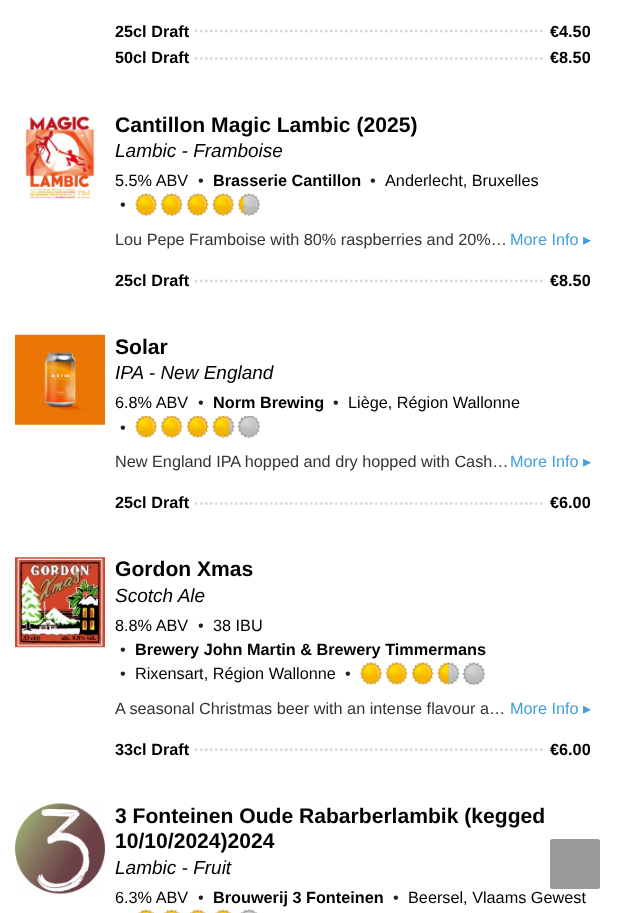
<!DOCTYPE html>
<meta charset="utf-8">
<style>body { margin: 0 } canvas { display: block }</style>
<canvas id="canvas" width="625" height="913"></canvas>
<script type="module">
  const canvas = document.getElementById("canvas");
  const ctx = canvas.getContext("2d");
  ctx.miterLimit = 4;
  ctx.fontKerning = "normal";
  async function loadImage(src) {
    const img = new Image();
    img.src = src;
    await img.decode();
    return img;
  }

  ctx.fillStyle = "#ffffff";
  ctx.fillRect(0, 0, 625, 913);
  ctx.font = "bold 16.25px Liberation Sans";
  ctx.fillStyle = "#000000";
  ctx.fillText("25cl Draft", 115, 37);
  ctx.drawImage(await loadImage("img1.png"), 194, 29, 351, 4);
  ctx.fillText("€4.50", 550, 37);
  ctx.fillText("50cl Draft", 115, 63);
  ctx.drawImage(await loadImage("img2.png"), 194, 57, 351, 3);
  ctx.fillText("€8.50", 550, 63);
  ctx.drawImage(await loadImage("img3.png"), 25, 116, 70, 84);
  ctx.font = "bold 21.1px Liberation Sans";
  ctx.fillText("Cantillon Magic Lambic (2025)", 115, 132);
  ctx.font = "italic 19px Liberation Sans";
  ctx.fillText("Lambic - Framboise", 115, 157);
  ctx.font = "16.25px Liberation Sans";
  ctx.fillText("5.5% ABV", 115, 186);
  ctx.fillStyle = "#212121";
  ctx.fillText("•", 198, 186);
  ctx.font = "bold 16.25px Liberation Sans";
  ctx.fillStyle = "#000000";
  ctx.fillText("Brasserie Cantillon", 213, 186);
  ctx.font = "16.25px Liberation Sans";
  ctx.fillStyle = "#212121";
  ctx.fillText("•", 370, 186);
  ctx.fillStyle = "#000000";
  ctx.fillText("Anderlecht, Bruxelles", 385, 186);
  ctx.fillStyle = "#212121";
  ctx.fillText("•", 120, 210);
  ctx.drawImage(await loadImage("img4.png"), 135, 193, 125, 23);
  ctx.fillStyle = "#333333";
  ctx.fillText("Lou Pepe Framboise with 80% raspberries and 20%…", 115, 245);
  ctx.fillStyle = "#43a0d8";
  ctx.fillText("More Info", 510, 245);
  ctx.font = "16.25px DejaVu Sans";
  ctx.fillText("▸", 583, 245);
  ctx.font = "bold 16.25px Liberation Sans";
  ctx.fillStyle = "#000000";
  ctx.fillText("25cl Draft", 115, 286);
  ctx.drawImage(await loadImage("img1.png"), 194, 279, 351, 4);
  ctx.fillText("€8.50", 550, 286);
  ctx.drawImage(await loadImage("img5.png"), 15, 334, 90, 91);
  ctx.font = "bold 21.1px Liberation Sans";
  ctx.fillText("Solar", 115, 354);
  ctx.font = "italic 19px Liberation Sans";
  ctx.fillText("IPA - New England", 115, 379);
  ctx.font = "16.25px Liberation Sans";
  ctx.fillText("6.8% ABV", 115, 408);
  ctx.fillStyle = "#212121";
  ctx.fillText("•", 198, 408);
  ctx.font = "bold 16.25px Liberation Sans";
  ctx.fillStyle = "#000000";
  ctx.fillText("Norm Brewing", 213, 408);
  ctx.font = "16.25px Liberation Sans";
  ctx.fillStyle = "#212121";
  ctx.fillText("•", 333, 408);
  ctx.fillStyle = "#000000";
  ctx.fillText("Liège, Région Wallonne", 348, 408);
  ctx.fillStyle = "#212121";
  ctx.fillText("•", 120, 433);
  ctx.drawImage(await loadImage("img6.png"), 135, 416, 125, 23);
  ctx.fillStyle = "#333333";
  ctx.fillText("New England IPA hopped and dry hopped with Cash…", 115, 467);
  ctx.fillStyle = "#43a0d8";
  ctx.fillText("More Info", 510, 467);
  ctx.font = "16.25px DejaVu Sans";
  ctx.fillText("▸", 583, 467);
  ctx.font = "bold 16.25px Liberation Sans";
  ctx.fillStyle = "#000000";
  ctx.fillText("25cl Draft", 115, 508);
  ctx.drawImage(await loadImage("img2.png"), 194, 502, 351, 3);
  ctx.fillText("€6.00", 550, 508);
  ctx.drawImage(await loadImage("img7.png"), 15, 557, 90, 91);
  ctx.font = "bold 21.1px Liberation Sans";
  ctx.fillText("Gordon Xmas", 115, 576);
  ctx.font = "italic 19px Liberation Sans";
  ctx.fillText("Scotch Ale", 115, 602);
  ctx.font = "16.25px Liberation Sans";
  ctx.fillText("8.8% ABV", 115, 631);
  ctx.fillStyle = "#212121";
  ctx.fillText("•", 198, 631);
  ctx.fillStyle = "#000000";
  ctx.fillText("38 IBU", 213, 631);
  ctx.fillStyle = "#212121";
  ctx.fillText("•", 120, 655);
  ctx.font = "bold 16.25px Liberation Sans";
  ctx.fillStyle = "#000000";
  ctx.fillText("Brewery John Martin & Brewery Timmermans", 135, 655);
  ctx.font = "16.25px Liberation Sans";
  ctx.fillStyle = "#212121";
  ctx.fillText("•", 120, 679);
  ctx.fillStyle = "#000000";
  ctx.fillText("Rixensart, Région Wallonne", 135, 679);
  ctx.fillStyle = "#212121";
  ctx.fillText("•", 345, 679);
  ctx.drawImage(await loadImage("img8.png"), 360, 662, 125, 23);
  ctx.fillStyle = "#333333";
  ctx.fillText("A seasonal Christmas beer with an intense flavour a…", 115, 714);
  ctx.fillStyle = "#43a0d8";
  ctx.fillText("More Info", 510, 714);
  ctx.font = "16.25px DejaVu Sans";
  ctx.fillText("▸", 583, 714);
  ctx.font = "bold 16.25px Liberation Sans";
  ctx.fillStyle = "#000000";
  ctx.fillText("33cl Draft", 115, 755);
  ctx.drawImage(await loadImage("img9.png"), 194, 748, 351, 3);
  ctx.fillText("€6.00", 550, 755);
  ctx.drawImage(await loadImage("img10.png"), 15, 803, 90, 91);
  ctx.font = "bold 21.1px Liberation Sans";
  ctx.fillText("3 Fonteinen Oude Rabarberlambik (kegged", 115, 823);
  ctx.fillText("10/10/2024)2024", 115, 848);
  ctx.font = "italic 19px Liberation Sans";
  ctx.fillText("Lambic - Fruit", 115, 874);
  ctx.font = "16.25px Liberation Sans";
  ctx.fillText("6.3% ABV", 115, 903);
  ctx.fillStyle = "#212121";
  ctx.fillText("•", 198, 903);
  ctx.font = "bold 16.25px Liberation Sans";
  ctx.fillStyle = "#000000";
  ctx.fillText("Brouwerij 3 Fonteinen", 213, 903);
  ctx.font = "16.25px Liberation Sans";
  ctx.fillStyle = "#212121";
  ctx.fillText("•", 393, 903);
  ctx.fillStyle = "#000000";
  ctx.fillText("Beersel, Vlaams Gewest", 408, 903);
  ctx.drawImage(await loadImage("img11.png"), 137, 909, 121, 4);
  ctx.fillStyle = "#999999";
  ctx.beginPath();
  ctx.roundRect(550, 839, 50, 50, 2.5);
  ctx.fill();
</script>
